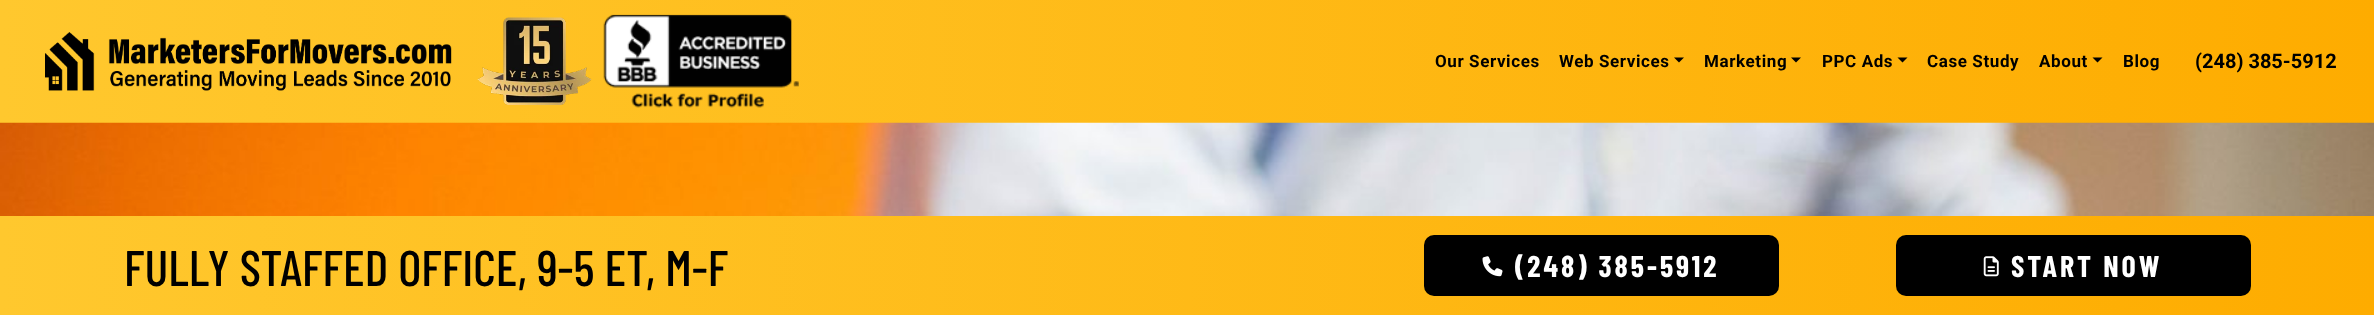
<!DOCTYPE html>
<meta charset="utf-8">
<style>body { margin: 0 } canvas { display: block }</style>
<canvas id="canvas" width="2374" height="315"></canvas>
<script type="module">
  const canvas = document.getElementById("canvas");
  const ctx = canvas.getContext("2d");
  ctx.miterLimit = 4;
  ctx.fontKerning = "normal";
  async function loadImage(src) {
    const img = new Image();
    img.src = src;
    await img.decode();
    return img;
  }
  let gradient;

  ctx.fillStyle = "#ffffff";
  ctx.fillRect(0, 0, 2374, 315);
  gradient = ctx.createLinearGradient(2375, 61, 0, 61);
  gradient.addColorStop(0, "#feac00");
  gradient.addColorStop(1, "#ffc82e");
  ctx.fillStyle = gradient;
  ctx.fillRect(0, 0, 2374, 123);
  ctx.drawImage(await loadImage("img1.png"), 45, 32, 407, 59);
  ctx.drawImage(await loadImage("img2.png"), 477, 17, 115, 88);
  ctx.drawImage(await loadImage("img3.png"), 603, 14, 196, 94);
  ctx.letterSpacing = "0.6px";
  ctx.font = "bold 17px Roboto";
  ctx.fillStyle = "#000000";
  ctx.fillText("Our Services", 1435, 67);
  ctx.fillText("Web Services", 1559, 67);
  ctx.beginPath();
  ctx.moveTo(1674, 57.5);
  ctx.lineTo(1684, 57.5);
  ctx.lineTo(1679, 62.5);
  ctx.closePath();
  ctx.fill();
  ctx.fillText("Marketing", 1704, 67);
  ctx.beginPath();
  ctx.moveTo(1791, 57.5);
  ctx.lineTo(1801, 57.5);
  ctx.lineTo(1796, 62.5);
  ctx.closePath();
  ctx.fill();
  ctx.fillText("PPC Ads", 1822, 67);
  ctx.beginPath();
  ctx.moveTo(1897.5, 57.5);
  ctx.lineTo(1907.5, 57.5);
  ctx.lineTo(1902.5, 62.5);
  ctx.closePath();
  ctx.fill();
  ctx.fillText("Case Study", 1927, 67);
  ctx.fillText("About", 2039, 67);
  ctx.beginPath();
  ctx.moveTo(2092.5, 57.5);
  ctx.lineTo(2102.5, 57.5);
  ctx.lineTo(2097.5, 62.5);
  ctx.closePath();
  ctx.fill();
  ctx.fillText("Blog", 2123, 67);
  ctx.letterSpacing = "0px";
  ctx.font = "bold 20px Roboto";
  ctx.fillText("(248) 385-5912", 2195, 68);
  ctx.drawImage(await loadImage("img4.png"), 0, 122, 2374, 94);
  gradient = ctx.createLinearGradient(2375, 266, 0, 266);
  gradient.addColorStop(0, "#feac00");
  gradient.addColorStop(1, "#ffc82e");
  ctx.fillStyle = gradient;
  ctx.fillRect(0, 216, 2374, 99);
  ctx.font = "500 50px Barlow Condensed";
  ctx.fillStyle = "#000000";
  ctx.fillText("FULLY STAFFED OFFICE, 9-5 ET, M-F", 124, 286);
  ctx.beginPath();
  ctx.roundRect(1424, 235, 355, 61, 10);
  ctx.fill();
  ctx.drawImage(await loadImage("img5.png"), 1482, 256, 21, 21);
  ctx.letterSpacing = "3px";
  ctx.font = "bold 30px Barlow Condensed";
  ctx.fillStyle = "#ffffff";
  ctx.fillText("(248) 385-5912", 1515, 277);
  ctx.fillStyle = "#000000";
  ctx.beginPath();
  ctx.roundRect(1896, 235, 355, 61, 10);
  ctx.fill();
  ctx.drawImage(await loadImage("img6.png"), 1983, 256, 16, 21);
  ctx.fillStyle = "#ffffff";
  ctx.fillText("START NOW", 2011, 277);
</script>
